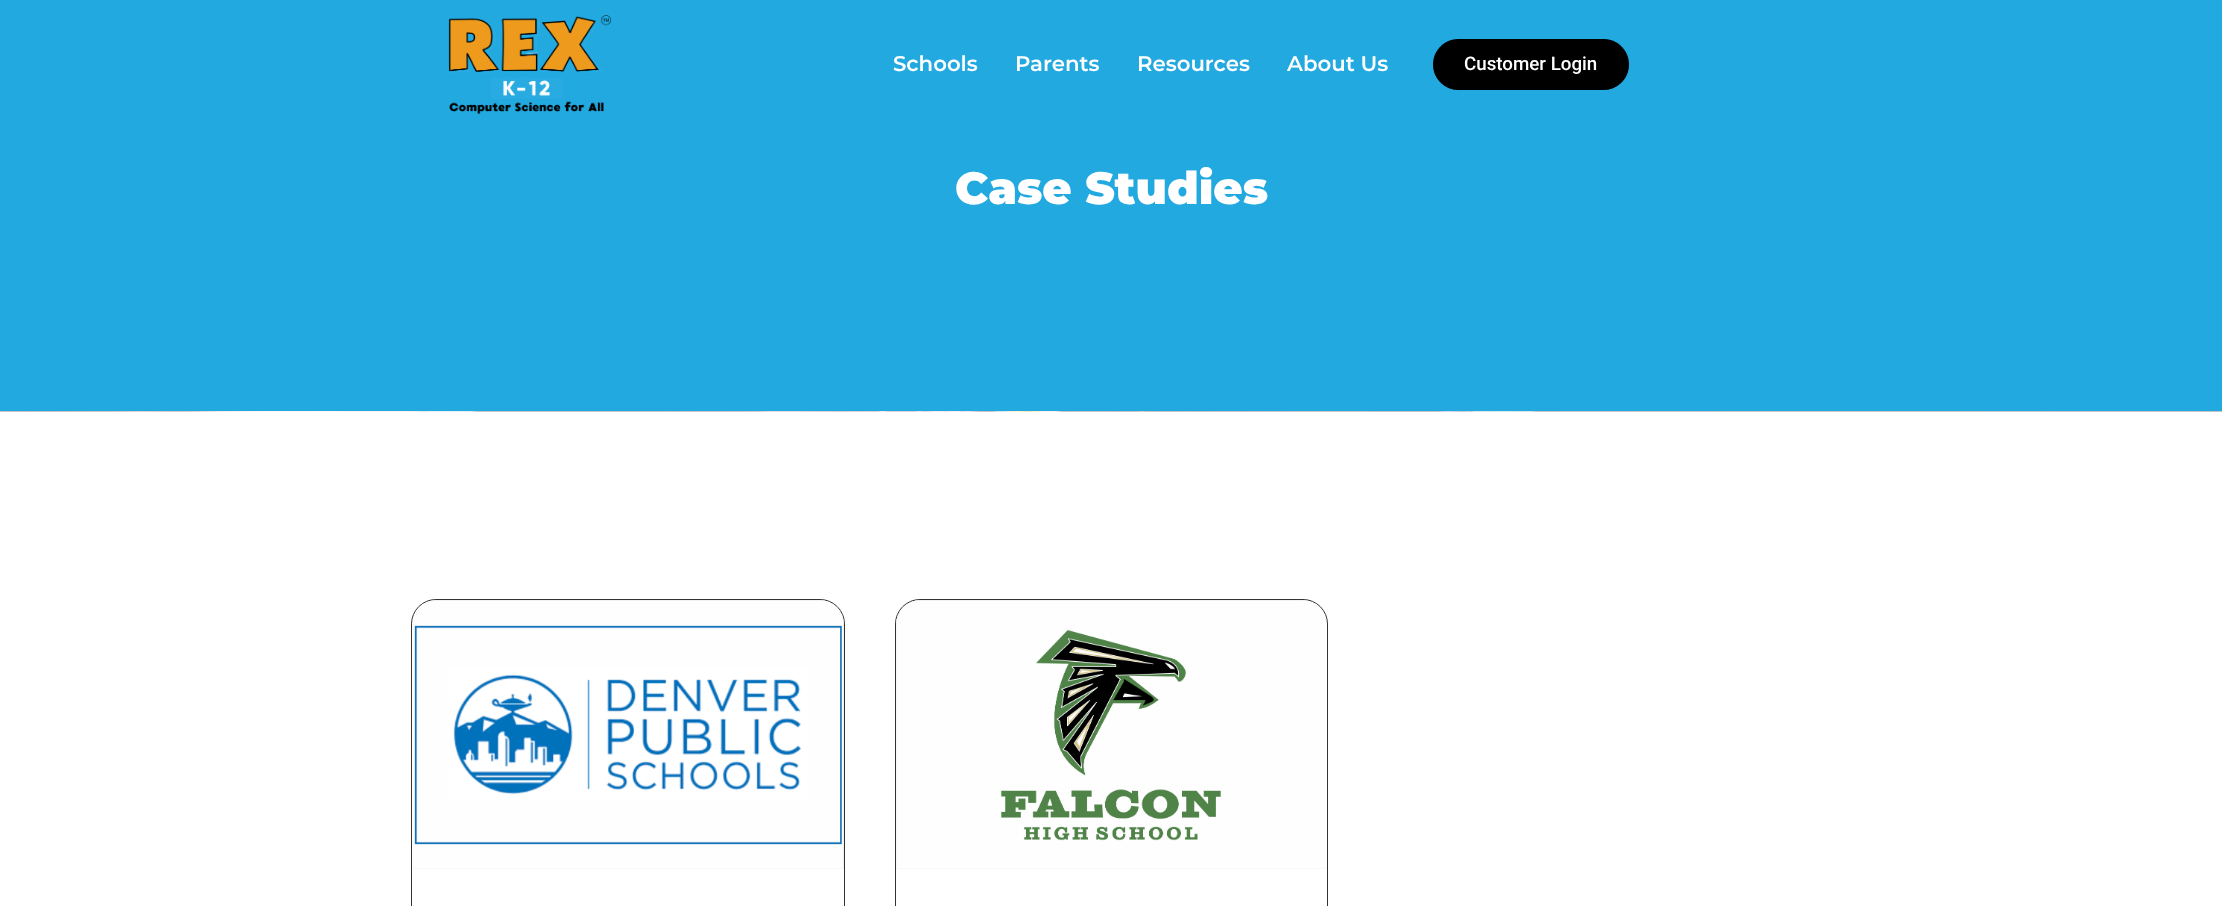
<!DOCTYPE html>
<meta charset="utf-8">
<style>body { margin: 0 } canvas { display: block }</style>
<canvas id="canvas" width="2222" height="906"></canvas>
<script type="module">
  const canvas = document.getElementById("canvas");
  const ctx = canvas.getContext("2d");
  ctx.miterLimit = 4;
  ctx.fontKerning = "normal";
  async function loadImage(src) {
    const img = new Image();
    img.src = src;
    await img.decode();
    return img;
  }

  ctx.fillStyle = "#ffffff";
  ctx.fillRect(0, 0, 2222, 906);
  ctx.fillStyle = "#22a9e0";
  ctx.fillRect(0, 0, 2222, 411);
  ctx.drawImage(await loadImage("img1.png"), 448, 15, 164, 99);
  ctx.font = "600 21.25px Montserrat";
  ctx.fillStyle = "#ffffff";
  ctx.fillText("Schools", 893, 71);
  ctx.fillText("Parents", 1015, 71);
  ctx.fillText("Resources", 1137, 71);
  ctx.fillText("About Us", 1287, 71);
  ctx.fillStyle = "#000000";
  ctx.beginPath();
  ctx.roundRect(1433.5, 39.5, 195, 50, 24.5);
  ctx.fill();
  ctx.strokeStyle = "#000000";
  ctx.stroke();
  ctx.font = "500 18.75px Roboto";
  ctx.fillStyle = "#ffffff";
  ctx.fillText("Customer Login", 1464, 70);
  ctx.drawImage(await loadImage("img2.png"), 0, 411, 2222, 1);
  ctx.font = "900 45px Montserrat";
  ctx.fillText("Case Studies", 955, 204);
  ctx.beginPath();
  ctx.roundRect(411.5, 599.5, 433, 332, 24.5);
  ctx.strokeStyle = "#333333";
  ctx.stroke();
  ctx.fillStyle = "#eaeaeb";
  ctx.beginPath();
  ctx.roundRect(413, 600, 431, 269, [25, 25, 0, 0]);
  ctx.fill();
  ctx.drawImage(await loadImage("img3.png"), 413, 600, 431, 269);
  ctx.beginPath();
  ctx.roundRect(895.5, 599.5, 432, 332, 24.5);
  ctx.stroke();
  ctx.beginPath();
  ctx.roundRect(896, 600, 430, 269, [25, 25, 0, 0]);
  ctx.fill();
  ctx.drawImage(await loadImage("img4.png"), 896, 600, 430, 269);
</script>
